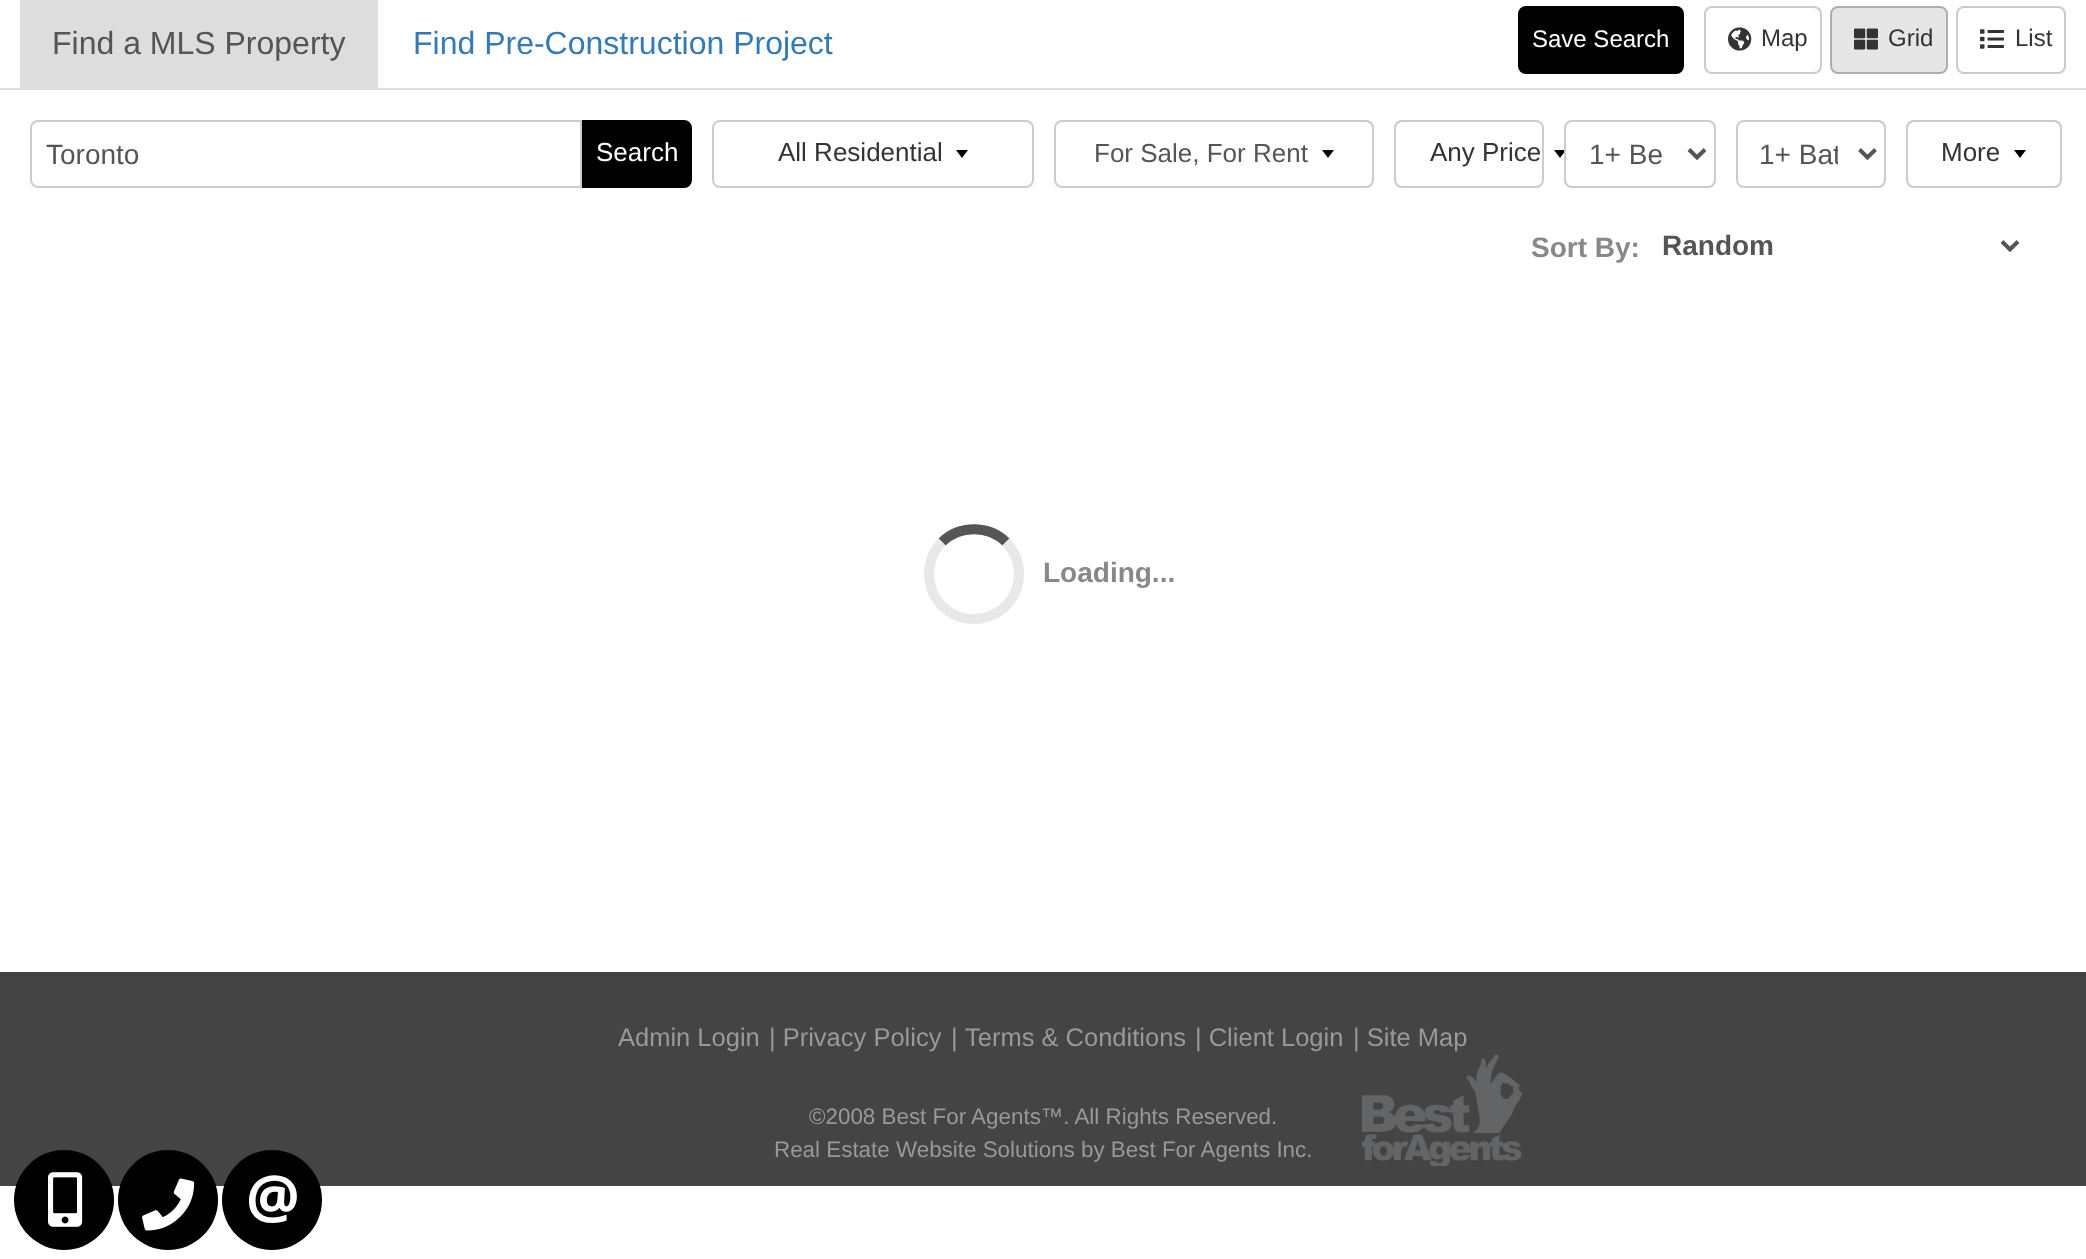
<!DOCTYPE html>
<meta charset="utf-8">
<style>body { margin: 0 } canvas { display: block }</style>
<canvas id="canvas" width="2086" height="1259"></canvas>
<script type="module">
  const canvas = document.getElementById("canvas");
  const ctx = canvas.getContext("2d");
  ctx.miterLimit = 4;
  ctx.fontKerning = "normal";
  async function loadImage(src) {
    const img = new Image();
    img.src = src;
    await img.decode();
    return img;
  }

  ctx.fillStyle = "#ffffff";
  ctx.fillRect(0, 0, 2086, 1259);
  ctx.fillStyle = "#000000";
  ctx.beginPath();
  ctx.roundRect(1519, 7, 164, 66, 7);
  ctx.fill();
  ctx.strokeStyle = "#000000";
  ctx.lineWidth = 2;
  ctx.stroke();
  ctx.font = "24px Liberation Sans";
  ctx.fillStyle = "#ffffff";
  ctx.fillText("Save Search", 1532, 47);
  ctx.beginPath();
  ctx.roundRect(1705, 7, 116, 66, 7);
  ctx.strokeStyle = "#cccccc";
  ctx.stroke();
  ctx.drawImage(await loadImage("img1.png"), 1728, 27, 24, 24);
  ctx.fillStyle = "#333333";
  ctx.fillText("Map", 1761, 46);
  ctx.fillStyle = "#e6e6e6";
  ctx.beginPath();
  ctx.roundRect(1831, 7, 116, 66, 7);
  ctx.fill();
  ctx.strokeStyle = "#adadad";
  ctx.stroke();
  ctx.drawImage(await loadImage("img2.png"), 1854, 28, 24, 22);
  ctx.fillStyle = "#333333";
  ctx.fillText("Grid", 1888, 46);
  ctx.beginPath();
  ctx.roundRect(1957, 7, 108, 66, 7);
  ctx.strokeStyle = "#cccccc";
  ctx.stroke();
  ctx.drawImage(await loadImage("img3.png"), 1980, 29, 24, 20);
  ctx.fillText("List", 2015, 46);
  ctx.beginPath();
  ctx.roundRect(31, 121, 550, 66, [7, 0, 0, 7]);
  ctx.stroke();
  ctx.font = "28px Liberation Sans";
  ctx.fillStyle = "#555555";
  ctx.fillText("Toronto", 46, 164);
  ctx.fillStyle = "#000000";
  ctx.beginPath();
  ctx.roundRect(583, 121, 108, 66, [0, 7, 7, 0]);
  ctx.fill();
  ctx.strokeStyle = "#000000";
  ctx.stroke();
  ctx.font = "26px Liberation Sans";
  ctx.fillStyle = "#ffffff";
  ctx.fillText("Search", 596, 161);
  ctx.beginPath();
  ctx.roundRect(713, 121, 320, 66, 7);
  ctx.strokeStyle = "#cccccc";
  ctx.stroke();
  ctx.fillStyle = "#333333";
  ctx.fillText("All Residential", 778, 161);
  ctx.fillStyle = "#000000";
  ctx.beginPath();
  ctx.moveTo(956, 150);
  ctx.lineTo(968, 150);
  ctx.lineTo(962, 158);
  ctx.closePath();
  ctx.fill();
  ctx.beginPath();
  ctx.roundRect(1055, 121, 318, 66, 7);
  ctx.stroke();
  ctx.fillStyle = "#555555";
  ctx.fillText("For Sale, For Rent", 1094, 162);
  ctx.fillStyle = "#000000";
  ctx.beginPath();
  ctx.moveTo(1322, 150);
  ctx.lineTo(1334, 150);
  ctx.lineTo(1328, 158);
  ctx.closePath();
  ctx.fill();
  ctx.beginPath();
  ctx.roundRect(1395, 121, 148, 66, 7);
  ctx.stroke();
  ctx.fillStyle = "#333333";
  ctx.fillText("Any Price", 1430, 161);
  ctx.fillStyle = "#000000";
  ctx.beginPath();
  ctx.moveTo(1554, 150);
  ctx.lineTo(1566, 150);
  ctx.lineTo(1560, 158);
  ctx.closePath();
  ctx.fill();
  ctx.fillStyle = "#ffffff";
  ctx.beginPath();
  ctx.roundRect(1565, 121, 150, 66, 7);
  ctx.fill();
  ctx.stroke();
  ctx.beginPath();
  ctx.moveTo(1689, 149.5);
  ctx.lineTo(1697, 157.5);
  ctx.lineTo(1705, 149.5);
  ctx.strokeStyle = "#555555";
  ctx.lineWidth = 4;
  ctx.stroke();
  ctx.font = "28px Liberation Sans";
  ctx.fillStyle = "#555555";
  ctx.fillText("1+ Be", 1589, 164);
  ctx.beginPath();
  ctx.roundRect(1737, 121, 148, 66, 7);
  ctx.strokeStyle = "#cccccc";
  ctx.lineWidth = 2;
  ctx.stroke();
  ctx.beginPath();
  ctx.moveTo(1859.5, 149.5);
  ctx.lineTo(1867.5, 157.5);
  ctx.lineTo(1875.5, 149.5);
  ctx.strokeStyle = "#555555";
  ctx.lineWidth = 4;
  ctx.stroke();
  ctx.save();
  ctx.beginPath();
  ctx.rect(1760, 136, 78, 36);
  ctx.clip();
  ctx.fillText("1+ Bat", 1759, 164);
  ctx.restore();
  ctx.beginPath();
  ctx.roundRect(1907, 121, 154, 66, 7);
  ctx.strokeStyle = "#cccccc";
  ctx.lineWidth = 2;
  ctx.stroke();
  ctx.font = "26px Liberation Sans";
  ctx.fillStyle = "#333333";
  ctx.fillText("More", 1941, 161);
  ctx.fillStyle = "#000000";
  ctx.beginPath();
  ctx.moveTo(2014, 150);
  ctx.lineTo(2026, 150);
  ctx.lineTo(2020, 158);
  ctx.closePath();
  ctx.fill();
  ctx.font = "bold 28px Liberation Sans";
  ctx.fillStyle = "#888888";
  ctx.fillText("Sort By:", 1531, 257);
  ctx.beginPath();
  ctx.moveTo(2002, 241.5);
  ctx.lineTo(2010, 249.5);
  ctx.lineTo(2018, 241.5);
  ctx.strokeStyle = "#555555";
  ctx.lineWidth = 4;
  ctx.stroke();
  ctx.fillStyle = "#555555";
  ctx.fillText("Random", 1662, 255);
  ctx.fillStyle = "#dddddd";
  ctx.fillRect(0, 88, 2086, 2);
  ctx.fillRect(20, 0, 358, 88);
  ctx.font = "32px Liberation Sans";
  ctx.fillStyle = "#555555";
  ctx.fillText("Find a MLS Property", 52, 54);
  ctx.fillStyle = "#337ab7";
  ctx.fillText("Find Pre-Construction Project", 413, 54);
  ctx.beginPath();
  ctx.moveTo(942, 542);
  ctx.bezierCurveTo(959.5, 525, 988.5, 525, 1006, 542);
  ctx.lineWidth = 10;
  ctx.stroke();
  ctx.beginPath();
  ctx.moveTo(1006, 542);
  ctx.bezierCurveTo(1014, 550.5, 1019, 562, 1019, 574);
  ctx.bezierCurveTo(1019, 614, 970.5, 634, 942, 606);
  ctx.bezierCurveTo(936, 599.5, 931.5, 591.5, 930, 583);
  ctx.bezierCurveTo(927, 568, 931.5, 552.5, 942, 542);
  ctx.strokeStyle = "#e8e8e8";
  ctx.stroke();
  ctx.font = "bold 28px Liberation Sans";
  ctx.fillStyle = "#888888";
  ctx.fillText("Loading...", 1043, 582);
  ctx.fillStyle = "#444444";
  ctx.fillRect(0, 972, 2086, 214);
  ctx.font = "25.5px Liberation Sans";
  ctx.fillStyle = "#999999";
  ctx.fillText("Admin Login", 618, 1046);
  ctx.fillText("| Privacy Policy", 769, 1046);
  ctx.fillText("|", 951, 1046);
  ctx.fillText("Terms & Conditions", 965, 1046);
  ctx.fillText("| Client Login", 1195, 1046);
  ctx.fillText("| Site Map", 1353, 1046);
  ctx.font = "22.4px Liberation Sans";
  ctx.fillText("©2008 Best For Agents™. All Rights Reserved.", 809, 1124);
  ctx.fillText("Real Estate Website Solutions by Best For Agents Inc.", 774, 1157);
  ctx.drawImage(await loadImage("img4.png"), 1362, 1054, 160, 112);
  ctx.fillStyle = "#000000";
  ctx.beginPath();
  ctx.arc(64, 1200, 50, 0, Math.PI * 2);
  ctx.fill();
  ctx.drawImage(await loadImage("img5.png"), 48, 1172, 35, 55);
  ctx.beginPath();
  ctx.arc(168, 1200, 50, 0, Math.PI * 2);
  ctx.fill();
  ctx.drawImage(await loadImage("img6.png"), 142, 1178, 53, 53);
  ctx.beginPath();
  ctx.arc(272, 1200, 50, 0, Math.PI * 2);
  ctx.fill();
  ctx.font = "bold 60px Open Sans";
  ctx.fillStyle = "#ffffff";
  ctx.fillText("@", 246, 1218);
</script>
